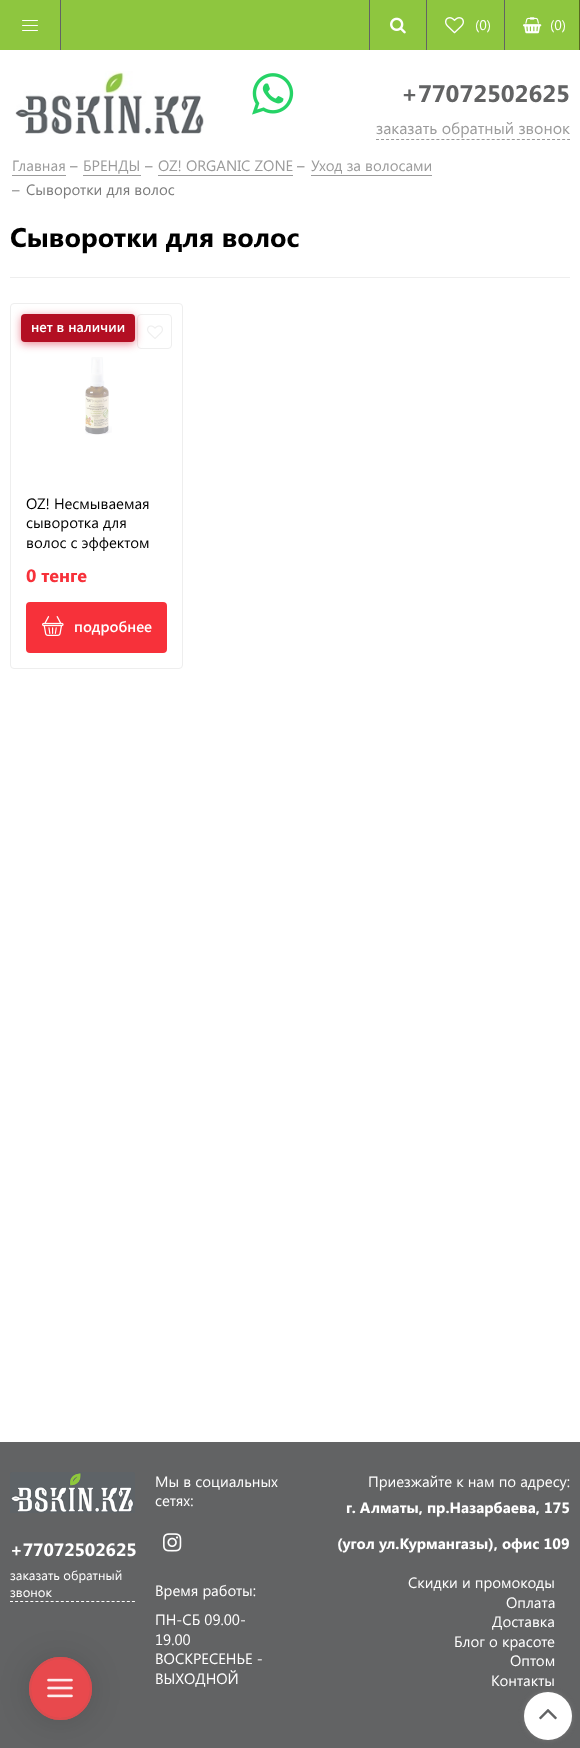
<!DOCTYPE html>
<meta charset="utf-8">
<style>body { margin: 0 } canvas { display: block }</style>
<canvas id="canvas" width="580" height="1748"></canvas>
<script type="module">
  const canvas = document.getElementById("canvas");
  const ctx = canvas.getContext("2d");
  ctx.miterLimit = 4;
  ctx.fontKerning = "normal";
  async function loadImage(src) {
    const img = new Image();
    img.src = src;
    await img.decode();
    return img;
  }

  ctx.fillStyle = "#ffffff";
  ctx.fillRect(0, 0, 580, 1748);
  ctx.fillStyle = "#8ec63f";
  ctx.fillRect(0, 0, 579, 50);
  ctx.fillStyle = "#626364";
  ctx.fillRect(60, 0, 1, 50);
  ctx.drawImage(await loadImage("img1.png"), 22, 20, 16, 11);
  ctx.fillRect(426, 0, 1, 50);
  ctx.fillRect(369, 0, 1, 50);
  ctx.drawImage(await loadImage("img2.png"), 390, 17, 16, 17);
  ctx.fillRect(504, 0, 1, 50);
  ctx.drawImage(await loadImage("img3.png"), 445, 17, 19, 17);
  ctx.font = "14px Segoe UI";
  ctx.fillStyle = "#ffffff";
  ctx.fillText("(0)", 475, 30);
  ctx.fillStyle = "#586a21";
  ctx.fillRect(579, 0, 1, 50);
  ctx.drawImage(await loadImage("img4.png"), 523, 17, 19, 17);
  ctx.fillStyle = "#ffffff";
  ctx.fillText("(0)", 550, 30);
  ctx.drawImage(await loadImage("img5.png"), 15, 71, 189, 63);
  ctx.drawImage(await loadImage("img6.png"), 252, 73, 42, 42);
  ctx.font = "bold 24px Segoe UI";
  ctx.fillStyle = "#626364";
  ctx.fillText("+77072502625", 401, 102);
  ctx.beginPath();
  ctx.moveTo(376, 139.5);
  ctx.lineTo(570, 139.5);
  ctx.strokeStyle = "#9b9b9b";
  ctx.setLineDash([3, 2.03]);
  ctx.stroke();
  ctx.font = "16px Segoe UI";
  ctx.fillStyle = "#9b9b9b";
  ctx.fillText("заказать обратный звонок", 376, 134);
  ctx.font = "15px Segoe UI";
  ctx.fillText("Главная", 12, 171);
  ctx.fillRect(12, 175, 54, 1);
  ctx.fillStyle = "#7b7b7b";
  ctx.fillText("–", 70, 171);
  ctx.fillStyle = "#9b9b9b";
  ctx.fillText("БРЕНДЫ", 83, 171);
  ctx.fillRect(83, 175, 58, 1);
  ctx.fillStyle = "#7b7b7b";
  ctx.fillText("–", 145, 171);
  ctx.fillStyle = "#9b9b9b";
  ctx.fillText("OZ! ORGANIC ZONE", 158, 171);
  ctx.fillRect(158, 175, 135, 1);
  ctx.fillStyle = "#7b7b7b";
  ctx.fillText("–", 297, 171);
  ctx.fillStyle = "#9b9b9b";
  ctx.fillText("Уход за волосами", 311, 171);
  ctx.fillRect(311, 175, 121, 1);
  ctx.fillStyle = "#7b7b7b";
  ctx.fillText("–", 12, 195);
  ctx.fillText("Сыворотки для волос", 26, 195);
  ctx.font = "bold 27px Segoe UI";
  ctx.fillStyle = "#000000";
  ctx.fillText("Сыворотки для волос", 10, 247);
  ctx.fillStyle = "#eeeeee";
  ctx.fillRect(10, 277, 560, 1);
  ctx.beginPath();
  ctx.roundRect(10.5, 303.5, 172, 365, 3.5);
  ctx.strokeStyle = "#eeeeee";
  ctx.setLineDash([]);
  ctx.stroke();
  ctx.beginPath();
  ctx.roundRect(137.5, 314.5, 34, 34, 3.5);
  ctx.stroke();
  ctx.drawImage(await loadImage("img8.png"), 147, 325, 16, 14);
  ctx.fillStyle = "rgba(208, 2, 27, 0.47)";
  ctx.filter = "blur(4px)";
  ctx.beginPath();
  ctx.roundRect(21, 316, 114, 28, 4);
  ctx.fill();
  ctx.filter = "none";
  ctx.fillStyle = "#b30f23";
  ctx.beginPath();
  ctx.roundRect(21, 314, 114, 28, 4);
  ctx.fill();
  ctx.font = "600 14px Segoe UI";
  ctx.fillStyle = "#ffffff";
  ctx.fillText("нет в наличии", 31, 332);
  ctx.drawImage(await loadImage("img7.png"), 85, 357, 27, 78);
  ctx.font = "15px Segoe UI";
  ctx.fillStyle = "#000000";
  ctx.fillText("OZ! Несмываемая", 26, 509);
  ctx.fillText("сыворотка для", 26, 528);
  ctx.save();
  ctx.beginPath();
  ctx.rect(26, 494, 141, 57);
  ctx.clip();
  ctx.fillText("волос с эффектом", 26, 548);
  ctx.restore();
  ctx.font = "bold 18px Segoe UI";
  ctx.fillStyle = "#f7313a";
  ctx.fillText("0 тенге", 26, 582);
  ctx.beginPath();
  ctx.roundRect(26, 602, 141, 51, 4);
  ctx.fill();
  ctx.drawImage(await loadImage("img9.png"), 42, 616, 22, 20);
  ctx.font = "600 15px Segoe UI";
  ctx.fillStyle = "#ffffff";
  ctx.fillText("подробнее", 74, 632);
  ctx.fillStyle = "#626364";
  ctx.fillRect(0, 1442, 580, 306);
  ctx.drawImage(await loadImage("img10.png"), 10, 1472, 125, 41);
  ctx.font = "bold 18px Segoe UI";
  ctx.fillStyle = "#ffffff";
  ctx.fillText("+77072502625", 10, 1556);
  ctx.beginPath();
  ctx.moveTo(10, 1601.5);
  ctx.lineTo(135, 1601.5);
  ctx.strokeStyle = "#ffffff";
  ctx.setLineDash([3, 2.08]);
  ctx.stroke();
  ctx.font = "13px Segoe UI";
  ctx.fillText("заказать обратный", 10, 1580);
  ctx.fillText("звонок", 10, 1597);
  ctx.font = "15px Segoe UI";
  ctx.fillText("Мы в социальных", 155, 1487);
  ctx.fillText("сетях:", 155, 1506);
  ctx.drawImage(await loadImage("img11.png"), 163, 1533, 19, 19);
  ctx.fillText("Время работы:", 155, 1596);
  ctx.fillText("ПН-СБ 09.00-", 155, 1625);
  ctx.fillText("19.00", 155, 1645);
  ctx.fillText("ВОСКРЕСЕНЬЕ -", 155, 1664);
  ctx.fillText("ВЫХОДНОЙ", 155, 1684);
  ctx.fillText("Приезжайте к нам по адресу:", 368, 1487);
  ctx.font = "bold 15px Segoe UI";
  ctx.fillText("г. Алматы, пр.Назарбаева, 175", 346, 1513);
  ctx.fillText("(угол ул.Курмангазы), офис 109", 337, 1549);
  ctx.font = "15px Segoe UI";
  ctx.fillText("Скидки и промокоды", 408, 1588);
  ctx.fillText("Оплата", 506, 1608);
  ctx.fillText("Доставка", 492, 1627);
  ctx.fillText("Блог о красоте", 454, 1647);
  ctx.fillText("Оптом", 510, 1666);
  ctx.fillText("Контакты", 491, 1686);
  ctx.fillStyle = "#777777";
  ctx.filter = "blur(2.5px)";
  ctx.beginPath();
  ctx.roundRect(524, 1692, 48, 48, 24);
  ctx.fill();
  ctx.filter = "none";
  ctx.fillStyle = "#ffffff";
  ctx.beginPath();
  ctx.arc(548, 1716, 24, 0, Math.PI * 2);
  ctx.fill();
  ctx.drawImage(await loadImage("img12.png"), 539, 1709, 18, 11);
  ctx.fillStyle = "rgba(10, 10, 10, 0.15)";
  ctx.filter = "blur(16px)";
  ctx.beginPath();
  ctx.roundRect(30, 1660, 60, 60, 30);
  ctx.fill();
  ctx.filter = "none";
  ctx.fillStyle = "#e8494d";
  ctx.beginPath();
  ctx.arc(60.5, 1688.5, 30.5, 0, Math.PI * 2);
  ctx.fill();
  ctx.strokeStyle = "#db4c4f";
  ctx.lineWidth = 2;
  ctx.setLineDash([]);
  ctx.stroke();
  ctx.drawImage(await loadImage("img13.png"), 47, 1678, 26, 20);
  ctx.beginPath();
  ctx.arc(60.5, 1688.5, 30.5, 0, Math.PI * 2);
  ctx.stroke();
</script>
